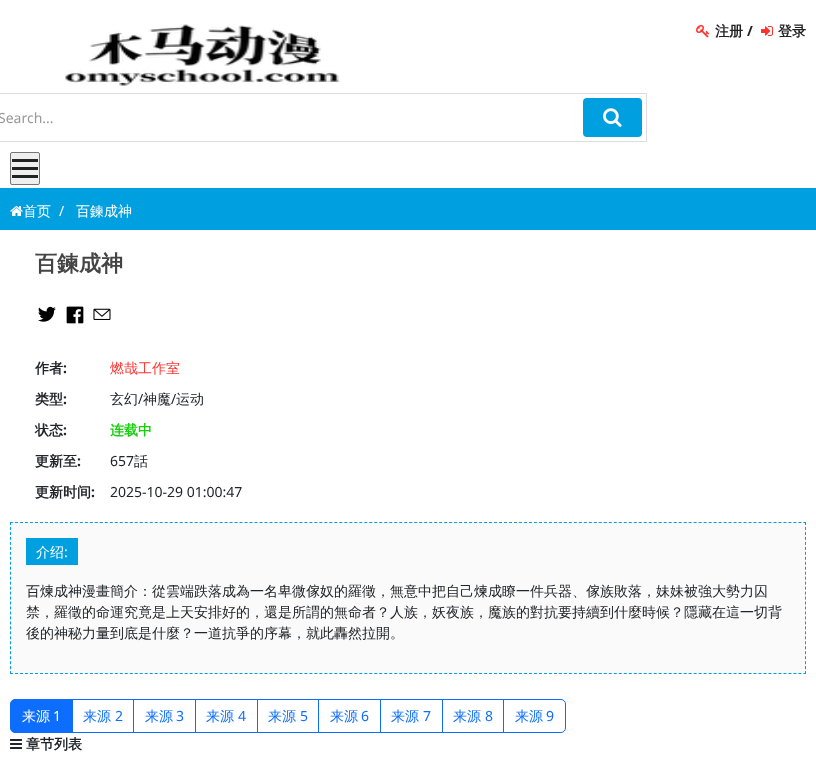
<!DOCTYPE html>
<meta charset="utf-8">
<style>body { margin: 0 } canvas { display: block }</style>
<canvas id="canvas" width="816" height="766"></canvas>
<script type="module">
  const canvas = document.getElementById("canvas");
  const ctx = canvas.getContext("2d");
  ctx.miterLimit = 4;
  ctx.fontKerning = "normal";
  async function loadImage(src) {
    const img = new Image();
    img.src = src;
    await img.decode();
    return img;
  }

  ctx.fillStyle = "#ffffff";
  ctx.fillRect(0, 0, 816, 766);
  ctx.drawImage(await loadImage("img1.png"), 65, 24, 276, 62);
  ctx.drawImage(await loadImage("img2.png"), 696, 25, 14, 13);
  ctx.font = "bold 14px WenQuanYi Zen Hei";
  ctx.fillStyle = "#222222";
  ctx.fillText("注册", 715, 36);
  ctx.font = "bold 14px Noto Sans";
  ctx.fillText("/", 747, 36);
  ctx.drawImage(await loadImage("img3.png"), 761, 26, 12, 10);
  ctx.font = "bold 14px WenQuanYi Zen Hei";
  ctx.fillText("登录", 778, 36);
  ctx.strokeStyle = "#dddddd";
  ctx.strokeRect(-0.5, 93.5, 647, 48);
  ctx.font = "14px Noto Sans";
  ctx.fillStyle = "#999999";
  ctx.fillText("Search...", -2, 123);
  ctx.fillStyle = "#009fdf";
  ctx.beginPath();
  ctx.roundRect(583, 98, 59, 39, 4);
  ctx.fill();
  ctx.drawImage(await loadImage("img4.png"), 603, 108, 19, 19);
  ctx.fillStyle = "#efefef";
  ctx.beginPath();
  ctx.roundRect(10.5, 152.5, 29, 32, 1.5);
  ctx.fill();
  ctx.strokeStyle = "#767676";
  ctx.stroke();
  ctx.fillStyle = "#222222";
  ctx.fillRect(12, 159, 26, 3);
  ctx.fillRect(12, 167, 26, 3);
  ctx.fillRect(12, 175, 26, 3);
  ctx.fillStyle = "#009fdf";
  ctx.fillRect(0, 188, 816, 42);
  ctx.drawImage(await loadImage("img5.png"), 10, 206, 13, 10);
  ctx.font = "500 14px WenQuanYi Zen Hei";
  ctx.fillStyle = "#ffffff";
  ctx.fillText("首页", 23, 216);
  ctx.font = "14px Noto Sans";
  ctx.fillText("/", 59, 216);
  ctx.font = "500 14px WenQuanYi Zen Hei";
  ctx.fillText("百鍊成神", 76, 216);
  ctx.font = "bold 22px WenQuanYi Zen Hei";
  ctx.fillStyle = "#444444";
  ctx.fillText("百鍊成神", 35, 271);
  ctx.drawImage(await loadImage("img6.png"), 38, 306, 18, 16);
  ctx.drawImage(await loadImage("img7.png"), 66, 306, 18, 18);
  ctx.drawImage(await loadImage("img8.png"), 93, 308, 18, 12);
  ctx.font = "bold 14px WenQuanYi Zen Hei";
  ctx.fillStyle = "#212529";
  ctx.fillText("作者", 35, 373);
  ctx.font = "bold 14px Noto Sans";
  ctx.fillText(":", 63, 373);
  ctx.font = "500 14px WenQuanYi Zen Hei";
  ctx.fillStyle = "#fe322e";
  ctx.fillText("燃哉工作室", 110, 373);
  ctx.font = "bold 14px WenQuanYi Zen Hei";
  ctx.fillStyle = "#212529";
  ctx.fillText("类型", 35, 404);
  ctx.font = "bold 14px Noto Sans";
  ctx.fillText(":", 63, 404);
  ctx.font = "500 14px WenQuanYi Zen Hei";
  ctx.fillText("玄幻", 110, 404);
  ctx.font = "14px Noto Sans";
  ctx.fillText("/", 138, 404);
  ctx.font = "500 14px WenQuanYi Zen Hei";
  ctx.fillText("神魔", 143, 404);
  ctx.font = "14px Noto Sans";
  ctx.fillText("/", 171, 404);
  ctx.font = "500 14px WenQuanYi Zen Hei";
  ctx.fillText("运动", 176, 404);
  ctx.font = "bold 14px WenQuanYi Zen Hei";
  ctx.fillText("状态", 35, 435);
  ctx.font = "bold 14px Noto Sans";
  ctx.fillText(":", 63, 435);
  ctx.font = "bold 14px WenQuanYi Zen Hei";
  ctx.fillStyle = "#18ce0f";
  ctx.fillText("连载中", 110, 435);
  ctx.fillStyle = "#212529";
  ctx.fillText("更新至", 35, 466);
  ctx.font = "bold 14px Noto Sans";
  ctx.fillText(":", 77, 466);
  ctx.font = "14px Noto Sans";
  ctx.fillText("657", 110, 466);
  ctx.font = "500 14px WenQuanYi Zen Hei";
  ctx.fillText("話", 134, 466);
  ctx.font = "bold 14px WenQuanYi Zen Hei";
  ctx.fillText("更新时间", 35, 497);
  ctx.font = "bold 14px Noto Sans";
  ctx.fillText(":", 91, 497);
  ctx.font = "14px Noto Sans";
  ctx.fillText("2025-10-29 01:00:47", 110, 497);
  ctx.fillStyle = "#fafafa";
  ctx.fillRect(10, 522, 796, 152);
  ctx.beginPath();
  ctx.moveTo(10, 522.5);
  ctx.lineTo(806, 522.5);
  ctx.strokeStyle = "#009fdf";
  ctx.setLineDash([3, 1.99]);
  ctx.stroke();
  ctx.beginPath();
  ctx.moveTo(805.5, 522);
  ctx.lineTo(805.5, 674);
  ctx.setLineDash([3, 1.97]);
  ctx.stroke();
  ctx.beginPath();
  ctx.moveTo(10, 673.5);
  ctx.lineTo(806, 673.5);
  ctx.setLineDash([3, 1.99]);
  ctx.stroke();
  ctx.beginPath();
  ctx.moveTo(10.5, 522);
  ctx.lineTo(10.5, 674);
  ctx.setLineDash([3, 1.97]);
  ctx.stroke();
  ctx.fillStyle = "#009fdf";
  ctx.fillRect(26, 538, 52, 27);
  ctx.font = "500 14px WenQuanYi Zen Hei";
  ctx.fillStyle = "#ffffff";
  ctx.fillText("介绍", 36, 557);
  ctx.font = "14px Noto Sans";
  ctx.fillText(":", 64, 557);
  ctx.font = "500 14px WenQuanYi Zen Hei";
  ctx.fillStyle = "#212529";
  ctx.fillText("百煉成神漫畫簡介：從雲端跌落成為一名卑微傢奴的羅徵，無意中把自己煉成瞭一件兵器、傢族敗落，妹妹被強大勢力囚", 26, 596);
  ctx.fillText("禁，羅徵的命運究竟是上天安排好的，還是所謂的無命者？人族，妖夜族，魔族的對抗要持續到什麼時候？隱藏在這一切背", 26, 617);
  ctx.fillText("後的神秘力量到底是什麼？一道抗爭的序幕，就此轟然拉開。", 26, 638);
  ctx.fillStyle = "#0d6efd";
  ctx.beginPath();
  ctx.roundRect(10.5, 699.5, 62, 33, [4.5, 0, 0, 4.5]);
  ctx.fill();
  ctx.strokeStyle = "#0d6efd";
  ctx.setLineDash([]);
  ctx.stroke();
  ctx.fillStyle = "#ffffff";
  ctx.fillText("来源", 22, 721);
  ctx.font = "14px Noto Sans";
  ctx.fillText("1", 53, 721);
  ctx.strokeRect(72.5, 699.5, 61, 33);
  ctx.font = "500 14px WenQuanYi Zen Hei";
  ctx.fillStyle = "#0d6efd";
  ctx.fillText("来源", 83, 721);
  ctx.font = "14px Noto Sans";
  ctx.fillText("2", 115, 721);
  ctx.strokeRect(133.5, 699.5, 62, 33);
  ctx.font = "500 14px WenQuanYi Zen Hei";
  ctx.fillText("来源", 145, 721);
  ctx.font = "14px Noto Sans";
  ctx.fillText("3", 176, 721);
  ctx.strokeRect(195.5, 699.5, 62, 33);
  ctx.font = "500 14px WenQuanYi Zen Hei";
  ctx.fillText("来源", 206, 721);
  ctx.font = "14px Noto Sans";
  ctx.fillText("4", 238, 721);
  ctx.strokeRect(257.5, 699.5, 61, 33);
  ctx.font = "500 14px WenQuanYi Zen Hei";
  ctx.fillText("来源", 268, 721);
  ctx.font = "14px Noto Sans";
  ctx.fillText("5", 300, 721);
  ctx.strokeRect(318.5, 699.5, 62, 33);
  ctx.font = "500 14px WenQuanYi Zen Hei";
  ctx.fillText("来源", 330, 721);
  ctx.font = "14px Noto Sans";
  ctx.fillText("6", 361, 721);
  ctx.strokeRect(380.5, 699.5, 62, 33);
  ctx.font = "500 14px WenQuanYi Zen Hei";
  ctx.fillText("来源", 391, 721);
  ctx.font = "14px Noto Sans";
  ctx.fillText("7", 423, 721);
  ctx.strokeRect(442.5, 699.5, 61, 33);
  ctx.font = "500 14px WenQuanYi Zen Hei";
  ctx.fillText("来源", 453, 721);
  ctx.font = "14px Noto Sans";
  ctx.fillText("8", 485, 721);
  ctx.beginPath();
  ctx.roundRect(503.5, 699.5, 62, 33, [0, 4.5, 4.5, 0]);
  ctx.stroke();
  ctx.font = "500 14px WenQuanYi Zen Hei";
  ctx.fillText("来源", 515, 721);
  ctx.font = "14px Noto Sans";
  ctx.fillText("9", 546, 721);
  ctx.drawImage(await loadImage("img9.png"), 10, 739, 12, 10);
  ctx.font = "bold 14px WenQuanYi Zen Hei";
  ctx.fillStyle = "#212529";
  ctx.fillText("章节列表", 26, 749);
</script>
